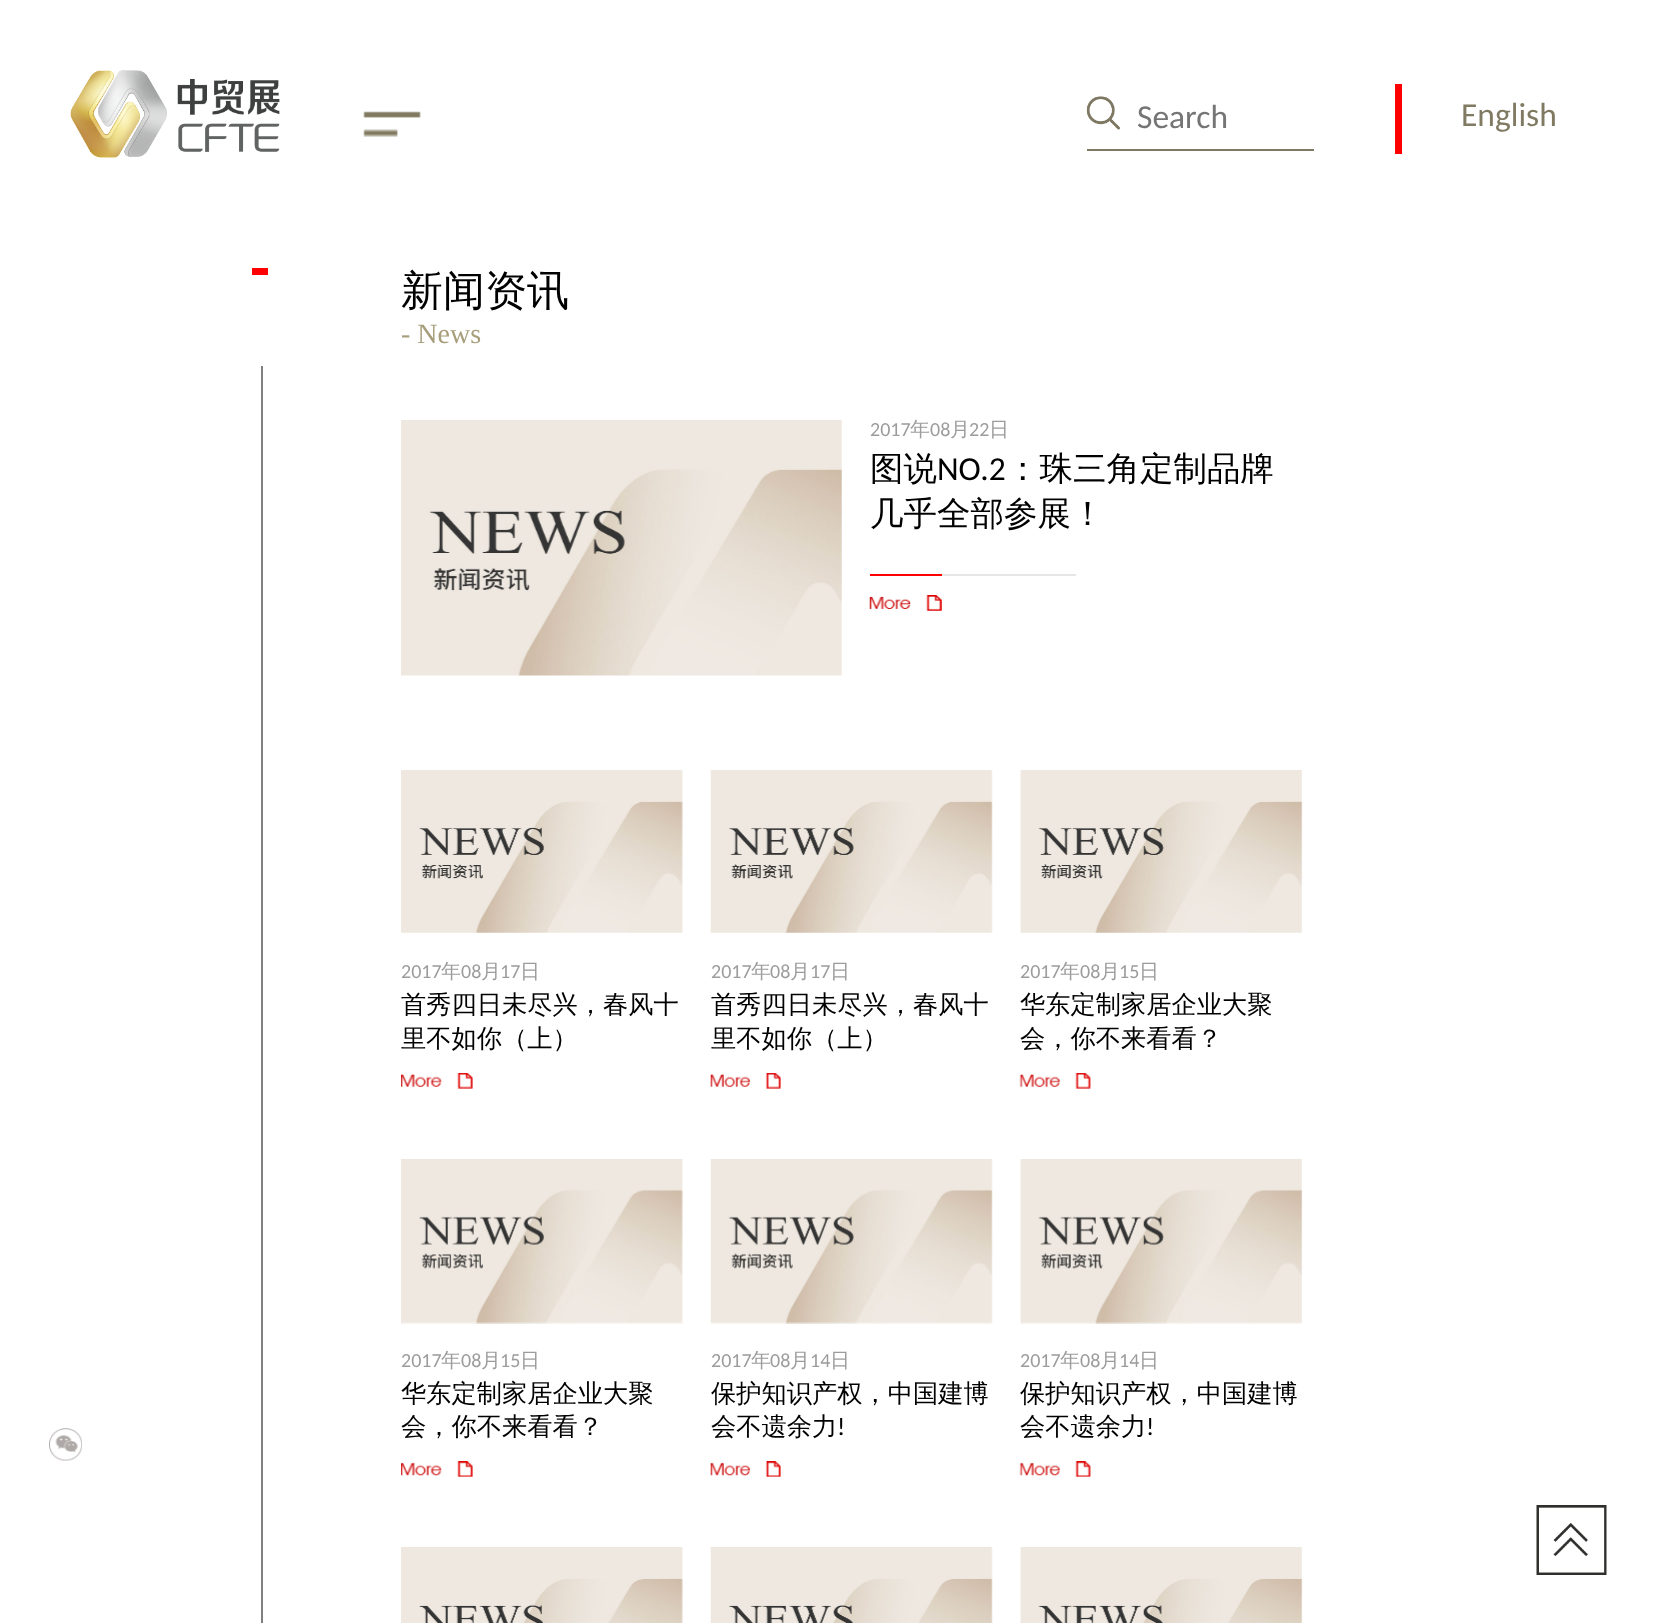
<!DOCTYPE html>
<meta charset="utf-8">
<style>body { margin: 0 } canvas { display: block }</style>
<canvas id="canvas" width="1655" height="1623"></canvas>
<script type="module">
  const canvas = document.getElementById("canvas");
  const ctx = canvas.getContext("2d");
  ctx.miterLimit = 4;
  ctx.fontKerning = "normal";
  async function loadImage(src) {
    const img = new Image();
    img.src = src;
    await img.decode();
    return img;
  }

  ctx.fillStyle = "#ffffff";
  ctx.fillRect(0, 0, 1655, 1623);
  ctx.drawImage(await loadImage("img1.png"), 70, 70, 210, 88);
  ctx.drawImage(await loadImage("img2.png"), 363, 111, 58, 26);
  ctx.fillStyle = "#807a63";
  ctx.fillRect(1087, 149, 227, 2);
  ctx.drawImage(await loadImage("img3.png"), 1086, 96, 34, 34);
  ctx.font = "33.5px Carlito";
  ctx.fillStyle = "#757575";
  ctx.fillText("Search", 1137, 128);
  ctx.fillStyle = "#ff0000";
  ctx.fillRect(1395, 84, 7, 70);
  ctx.fillStyle = "#807a63";
  ctx.fillText("English", 1461, 126);
  ctx.fillStyle = "#ff0000";
  ctx.fillRect(252, 268, 16, 7);
  ctx.font = "500 42px WenQuanYi Zen Hei";
  ctx.fillStyle = "#000000";
  ctx.fillText("新闻资讯", 401, 305);
  ctx.font = "28px Liberation Serif";
  ctx.fillStyle = "#a79e7c";
  ctx.fillText("- News", 401, 343);
  ctx.fillStyle = "#808080";
  ctx.fillRect(261, 366, 2, 1257);
  ctx.drawImage(await loadImage("img4.png"), 401, 420, 441, 256);
  ctx.font = "20px Carlito";
  ctx.fillStyle = "#9c9c9c";
  ctx.fillText("2017", 870, 436);
  ctx.font = "500 20px WenQuanYi Zen Hei";
  ctx.fillText("年", 910, 436);
  ctx.font = "20px Carlito";
  ctx.fillText("08", 930, 436);
  ctx.font = "500 20px WenQuanYi Zen Hei";
  ctx.fillText("月", 950, 436);
  ctx.font = "20px Carlito";
  ctx.fillText("22", 969, 436);
  ctx.font = "500 20px WenQuanYi Zen Hei";
  ctx.fillText("日", 989, 436);
  ctx.font = "500 33.5px WenQuanYi Zen Hei";
  ctx.fillStyle = "#000000";
  ctx.fillText("图说", 870, 480);
  ctx.font = "33.5px Carlito";
  ctx.fillText("NO.2", 937, 480);
  ctx.font = "500 33.5px WenQuanYi Zen Hei";
  ctx.fillText("：珠三角定制品牌", 1006, 480);
  ctx.fillText("几乎全部参展！", 870, 525);
  ctx.fillStyle = "#e6e6e6";
  ctx.fillRect(942, 574, 134, 2);
  ctx.fillStyle = "#ff0000";
  ctx.fillRect(870, 574, 72, 2);
  ctx.drawImage(await loadImage("img5.png"), 869, 595, 73, 16);
  ctx.drawImage(await loadImage("img6.png"), 401, 770, 282, 163);
  ctx.font = "20px Carlito";
  ctx.fillStyle = "#9c9c9c";
  ctx.fillText("2017", 401, 978);
  ctx.font = "500 20px WenQuanYi Zen Hei";
  ctx.fillText("年", 441, 978);
  ctx.font = "20px Carlito";
  ctx.fillText("08", 461, 978);
  ctx.font = "500 20px WenQuanYi Zen Hei";
  ctx.fillText("月", 481, 978);
  ctx.font = "20px Carlito";
  ctx.fillText("17", 500, 978);
  ctx.font = "500 20px WenQuanYi Zen Hei";
  ctx.fillText("日", 520, 978);
  ctx.font = "500 25.25px WenQuanYi Zen Hei";
  ctx.fillStyle = "#000000";
  ctx.fillText("首秀四日未尽兴，春风十", 401, 1013);
  ctx.fillText("里不如你（上）", 401, 1047);
  ctx.drawImage(await loadImage("img7.png"), 401, 1073, 72, 16);
  ctx.drawImage(await loadImage("img8.png"), 710, 770, 283, 163);
  ctx.font = "20px Carlito";
  ctx.fillStyle = "#9c9c9c";
  ctx.fillText("2017", 711, 978);
  ctx.font = "500 20px WenQuanYi Zen Hei";
  ctx.fillText("年", 751, 978);
  ctx.font = "20px Carlito";
  ctx.fillText("08", 770, 978);
  ctx.font = "500 20px WenQuanYi Zen Hei";
  ctx.fillText("月", 790, 978);
  ctx.font = "20px Carlito";
  ctx.fillText("17", 810, 978);
  ctx.font = "500 20px WenQuanYi Zen Hei";
  ctx.fillText("日", 830, 978);
  ctx.font = "500 25.25px WenQuanYi Zen Hei";
  ctx.fillStyle = "#000000";
  ctx.fillText("首秀四日未尽兴，春风十", 711, 1013);
  ctx.fillText("里不如你（上）", 711, 1047);
  ctx.drawImage(await loadImage("img9.png"), 710, 1073, 71, 16);
  ctx.drawImage(await loadImage("img10.png"), 1020, 770, 283, 163);
  ctx.font = "20px Carlito";
  ctx.fillStyle = "#9c9c9c";
  ctx.fillText("2017", 1020, 978);
  ctx.font = "500 20px WenQuanYi Zen Hei";
  ctx.fillText("年", 1060, 978);
  ctx.font = "20px Carlito";
  ctx.fillText("08", 1080, 978);
  ctx.font = "500 20px WenQuanYi Zen Hei";
  ctx.fillText("月", 1100, 978);
  ctx.font = "20px Carlito";
  ctx.fillText("15", 1119, 978);
  ctx.font = "500 20px WenQuanYi Zen Hei";
  ctx.fillText("日", 1139, 978);
  ctx.font = "500 25.25px WenQuanYi Zen Hei";
  ctx.fillStyle = "#000000";
  ctx.fillText("华东定制家居企业大聚", 1020, 1013);
  ctx.fillText("会，你不来看看？", 1020, 1047);
  ctx.drawImage(await loadImage("img11.png"), 1019, 1073, 72, 16);
  ctx.drawImage(await loadImage("img12.png"), 401, 1159, 282, 165);
  ctx.font = "20px Carlito";
  ctx.fillStyle = "#9c9c9c";
  ctx.fillText("2017", 401, 1367);
  ctx.font = "500 20px WenQuanYi Zen Hei";
  ctx.fillText("年", 441, 1367);
  ctx.font = "20px Carlito";
  ctx.fillText("08", 461, 1367);
  ctx.font = "500 20px WenQuanYi Zen Hei";
  ctx.fillText("月", 481, 1367);
  ctx.font = "20px Carlito";
  ctx.fillText("15", 500, 1367);
  ctx.font = "500 20px WenQuanYi Zen Hei";
  ctx.fillText("日", 520, 1367);
  ctx.font = "500 25.25px WenQuanYi Zen Hei";
  ctx.fillStyle = "#000000";
  ctx.fillText("华东定制家居企业大聚", 401, 1402);
  ctx.fillText("会，你不来看看？", 401, 1435);
  ctx.drawImage(await loadImage("img13.png"), 401, 1461, 72, 16);
  ctx.drawImage(await loadImage("img14.png"), 710, 1159, 283, 165);
  ctx.font = "20px Carlito";
  ctx.fillStyle = "#9c9c9c";
  ctx.fillText("2017", 711, 1367);
  ctx.font = "500 20px WenQuanYi Zen Hei";
  ctx.fillText("年", 751, 1367);
  ctx.font = "20px Carlito";
  ctx.fillText("08", 770, 1367);
  ctx.font = "500 20px WenQuanYi Zen Hei";
  ctx.fillText("月", 790, 1367);
  ctx.font = "20px Carlito";
  ctx.fillText("14", 810, 1367);
  ctx.font = "500 20px WenQuanYi Zen Hei";
  ctx.fillText("日", 830, 1367);
  ctx.font = "500 25.25px WenQuanYi Zen Hei";
  ctx.fillStyle = "#000000";
  ctx.fillText("保护知识产权，中国建博", 711, 1402);
  ctx.fillText("会不遗余力", 711, 1435);
  ctx.font = "25.25px Carlito";
  ctx.fillText("!", 837, 1435);
  ctx.drawImage(await loadImage("img15.png"), 710, 1461, 71, 16);
  ctx.drawImage(await loadImage("img16.png"), 1020, 1159, 283, 165);
  ctx.font = "20px Carlito";
  ctx.fillStyle = "#9c9c9c";
  ctx.fillText("2017", 1020, 1367);
  ctx.font = "500 20px WenQuanYi Zen Hei";
  ctx.fillText("年", 1060, 1367);
  ctx.font = "20px Carlito";
  ctx.fillText("08", 1080, 1367);
  ctx.font = "500 20px WenQuanYi Zen Hei";
  ctx.fillText("月", 1100, 1367);
  ctx.font = "20px Carlito";
  ctx.fillText("14", 1119, 1367);
  ctx.font = "500 20px WenQuanYi Zen Hei";
  ctx.fillText("日", 1139, 1367);
  ctx.font = "500 25.25px WenQuanYi Zen Hei";
  ctx.fillStyle = "#000000";
  ctx.fillText("保护知识产权，中国建博", 1020, 1402);
  ctx.fillText("会不遗余力", 1020, 1435);
  ctx.font = "25.25px Carlito";
  ctx.fillText("!", 1146, 1435);
  ctx.drawImage(await loadImage("img17.png"), 1019, 1461, 72, 16);
  ctx.drawImage(await loadImage("img18.png"), 401, 1547, 282, 76);
  ctx.drawImage(await loadImage("img19.png"), 710, 1547, 283, 76);
  ctx.drawImage(await loadImage("img20.png"), 1020, 1547, 283, 76);
  ctx.drawImage(await loadImage("img21.png"), 49, 1428, 33, 33);
  ctx.drawImage(await loadImage("img22.png"), 1536, 1505, 71, 70);
</script>
